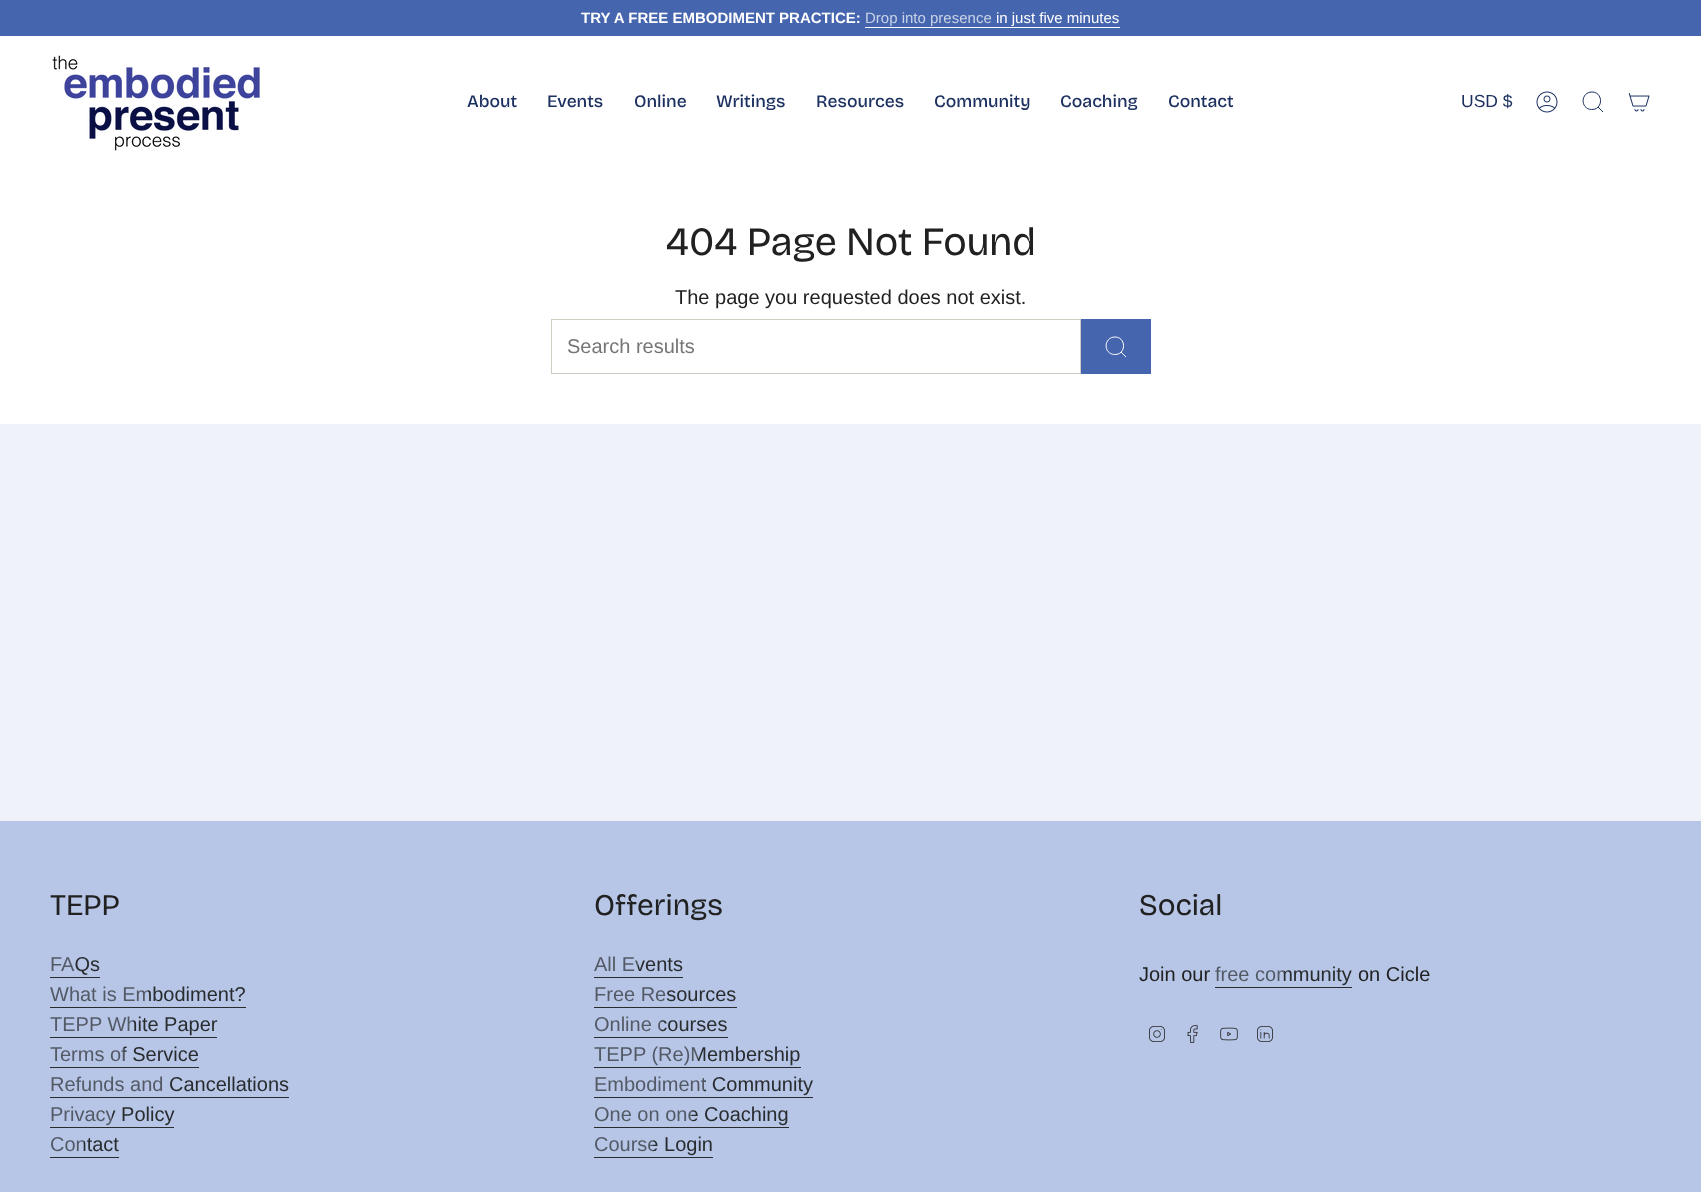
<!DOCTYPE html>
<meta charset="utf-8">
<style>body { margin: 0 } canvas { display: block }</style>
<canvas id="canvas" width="1701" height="1192"></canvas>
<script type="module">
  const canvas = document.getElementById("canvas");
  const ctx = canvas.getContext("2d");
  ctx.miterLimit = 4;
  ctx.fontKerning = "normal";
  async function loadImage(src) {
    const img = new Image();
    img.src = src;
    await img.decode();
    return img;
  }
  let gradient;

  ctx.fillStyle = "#eff3f9";
  ctx.fillRect(0, 0, 1701, 1192);
  ctx.fillStyle = "#4565ae";
  ctx.fillRect(0, 0, 1701, 36);
  ctx.font = "bold 15px Liberation Sans";
  ctx.fillStyle = "#ffffff";
  ctx.fillText("TRY A FREE EMBODIMENT PRACTICE:", 581, 23);
  ctx.font = "15px Liberation Sans";
  gradient = ctx.createLinearGradient(865, 18, 1120, 18);
  gradient.addColorStop(0, "#c7d1e7");
  gradient.addColorStop(0.5, "#c7d1e7");
  gradient.addColorStop(0.5, "#ffffff");
  gradient.addColorStop(1, "#ffffff");
  ctx.fillStyle = gradient;
  ctx.fillText("Drop into presence in just five minutes", 865, 23);
  ctx.fillStyle = "#ffffff";
  ctx.fillRect(865, 27, 255, 1);
  ctx.fillRect(0, 36, 1701, 388);
  ctx.drawImage(await loadImage("img1.png"), 52, 55, 208, 96);
  ctx.font = "500 17.5px Bricolage Grotesque";
  ctx.fillStyle = "#1d3161";
  ctx.fillText("About", 467, 107);
  ctx.fillText("Events", 547, 107);
  ctx.fillText("Online", 634, 107);
  ctx.fillText("Writings", 716, 107);
  ctx.fillText("Resources", 816, 107);
  ctx.fillText("Community", 934, 107);
  ctx.fillText("Coaching", 1060, 107);
  ctx.fillText("Contact", 1168, 107);
  ctx.font = "17.5px Liberation Sans";
  ctx.fillText("USD $", 1461, 107);
  ctx.drawImage(await loadImage("img2.png"), 1536, 91, 22, 22);
  ctx.beginPath();
  ctx.moveTo(1592, 92);
  ctx.bezierCurveTo(1603.5, 92, 1603.5, 110, 1591.5, 109.5);
  ctx.bezierCurveTo(1580, 109, 1580.5, 92, 1592, 92);
  ctx.closePath();
  ctx.moveTo(1598, 107);
  ctx.lineTo(1603, 112);
  ctx.strokeStyle = "#1d3161";
  ctx.stroke();
  ctx.drawImage(await loadImage("img3.png"), 1628, 93, 22, 19);
  ctx.font = "40px 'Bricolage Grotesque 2'";
  ctx.fillStyle = "#212121";
  ctx.fillText("404 Page Not Found", 666, 255);
  ctx.font = "20px Liberation Sans";
  ctx.fillText("The page you requested does not exist.", 675, 304);
  ctx.strokeStyle = "#d1cdc4";
  ctx.strokeRect(551.5, 319.5, 529, 54);
  ctx.fillStyle = "#757575";
  ctx.fillText("Search results", 567, 353);
  ctx.fillStyle = "#4565ae";
  ctx.fillRect(1081, 319, 70, 55);
  ctx.beginPath();
  ctx.moveTo(1115, 337);
  ctx.bezierCurveTo(1126.5, 337, 1126.5, 355, 1114.5, 354.5);
  ctx.bezierCurveTo(1103, 354, 1103.5, 337, 1115, 337);
  ctx.closePath();
  ctx.moveTo(1121, 352);
  ctx.lineTo(1126, 357);
  ctx.strokeStyle = "#ffffff";
  ctx.stroke();
  ctx.fillStyle = "#b7c6e7";
  ctx.fillRect(0, 821, 1701, 371);
  ctx.font = "30px Bricolage Grotesque";
  ctx.fillStyle = "#212121";
  ctx.fillText("TEPP", 50, 915);
  ctx.font = "20px Liberation Sans";
  gradient = ctx.createLinearGradient(50, 966, 100, 966);
  gradient.addColorStop(0, "#535a66");
  gradient.addColorStop(0.5, "#535a66");
  gradient.addColorStop(0.5, "#282c2e");
  gradient.addColorStop(1, "#282c2e");
  ctx.fillStyle = gradient;
  ctx.fillText("FAQs", 50, 971);
  ctx.fillStyle = "#282c2e";
  ctx.fillRect(50, 977, 50, 1);
  gradient = ctx.createLinearGradient(50, 996, 246, 996);
  gradient.addColorStop(0, "#535a66");
  gradient.addColorStop(0.5, "#535a66");
  gradient.addColorStop(0.5, "#282c2e");
  gradient.addColorStop(1, "#282c2e");
  ctx.fillStyle = gradient;
  ctx.fillText("What is Embodiment?", 50, 1001);
  ctx.fillStyle = "#282c2e";
  ctx.fillRect(50, 1007, 196, 1);
  gradient = ctx.createLinearGradient(50, 1026, 217, 1026);
  gradient.addColorStop(0, "#535a66");
  gradient.addColorStop(0.5, "#535a66");
  gradient.addColorStop(0.5, "#282c2e");
  gradient.addColorStop(1, "#282c2e");
  ctx.fillStyle = gradient;
  ctx.fillText("TEPP White Paper", 50, 1031);
  ctx.fillStyle = "#282c2e";
  ctx.fillRect(50, 1037, 167, 1);
  gradient = ctx.createLinearGradient(50, 1056, 199, 1056);
  gradient.addColorStop(0, "#535a66");
  gradient.addColorStop(0.5, "#535a66");
  gradient.addColorStop(0.5, "#282c2e");
  gradient.addColorStop(1, "#282c2e");
  ctx.fillStyle = gradient;
  ctx.fillText("Terms of Service", 50, 1061);
  ctx.fillStyle = "#282c2e";
  ctx.fillRect(50, 1067, 149, 1);
  gradient = ctx.createLinearGradient(50, 1086, 289, 1086);
  gradient.addColorStop(0, "#535a66");
  gradient.addColorStop(0.5, "#535a66");
  gradient.addColorStop(0.5, "#282c2e");
  gradient.addColorStop(1, "#282c2e");
  ctx.fillStyle = gradient;
  ctx.fillText("Refunds and Cancellations", 50, 1091);
  ctx.fillStyle = "#282c2e";
  ctx.fillRect(50, 1097, 239, 1);
  gradient = ctx.createLinearGradient(50, 1116, 174, 1116);
  gradient.addColorStop(0, "#535a66");
  gradient.addColorStop(0.5, "#535a66");
  gradient.addColorStop(0.5, "#282c2e");
  gradient.addColorStop(1, "#282c2e");
  ctx.fillStyle = gradient;
  ctx.fillText("Privacy Policy", 50, 1121);
  ctx.fillStyle = "#282c2e";
  ctx.fillRect(50, 1127, 124, 1);
  gradient = ctx.createLinearGradient(50, 1146, 119, 1146);
  gradient.addColorStop(0, "#535a66");
  gradient.addColorStop(0.5, "#535a66");
  gradient.addColorStop(0.5, "#282c2e");
  gradient.addColorStop(1, "#282c2e");
  ctx.fillStyle = gradient;
  ctx.fillText("Contact", 50, 1151);
  ctx.fillStyle = "#282c2e";
  ctx.fillRect(50, 1157, 69, 1);
  ctx.font = "30px Bricolage Grotesque";
  ctx.fillStyle = "#212121";
  ctx.fillText("Offerings", 594, 915);
  ctx.font = "20px Liberation Sans";
  gradient = ctx.createLinearGradient(594, 966, 683, 966);
  gradient.addColorStop(0, "#535a66");
  gradient.addColorStop(0.5, "#535a66");
  gradient.addColorStop(0.5, "#282c2e");
  gradient.addColorStop(1, "#282c2e");
  ctx.fillStyle = gradient;
  ctx.fillText("All Events", 594, 971);
  ctx.fillStyle = "#282c2e";
  ctx.fillRect(594, 977, 89, 1);
  gradient = ctx.createLinearGradient(594, 996, 737, 996);
  gradient.addColorStop(0, "#535a66");
  gradient.addColorStop(0.5, "#535a66");
  gradient.addColorStop(0.5, "#282c2e");
  gradient.addColorStop(1, "#282c2e");
  ctx.fillStyle = gradient;
  ctx.fillText("Free Resources", 594, 1001);
  ctx.fillStyle = "#282c2e";
  ctx.fillRect(594, 1007, 143, 1);
  gradient = ctx.createLinearGradient(594, 1026, 728, 1026);
  gradient.addColorStop(0, "#535a66");
  gradient.addColorStop(0.5, "#535a66");
  gradient.addColorStop(0.5, "#282c2e");
  gradient.addColorStop(1, "#282c2e");
  ctx.fillStyle = gradient;
  ctx.fillText("Online courses", 594, 1031);
  ctx.fillStyle = "#282c2e";
  ctx.fillRect(594, 1037, 134, 1);
  gradient = ctx.createLinearGradient(594, 1056, 801, 1056);
  gradient.addColorStop(0, "#535a66");
  gradient.addColorStop(0.5, "#535a66");
  gradient.addColorStop(0.5, "#282c2e");
  gradient.addColorStop(1, "#282c2e");
  ctx.fillStyle = gradient;
  ctx.fillText("TEPP (Re)Membership", 594, 1061);
  ctx.fillStyle = "#282c2e";
  ctx.fillRect(594, 1067, 207, 1);
  gradient = ctx.createLinearGradient(594, 1086, 813, 1086);
  gradient.addColorStop(0, "#535a66");
  gradient.addColorStop(0.5, "#535a66");
  gradient.addColorStop(0.5, "#282c2e");
  gradient.addColorStop(1, "#282c2e");
  ctx.fillStyle = gradient;
  ctx.fillText("Embodiment Community", 594, 1091);
  ctx.fillStyle = "#282c2e";
  ctx.fillRect(594, 1097, 219, 1);
  gradient = ctx.createLinearGradient(594, 1116, 789, 1116);
  gradient.addColorStop(0, "#535a66");
  gradient.addColorStop(0.5, "#535a66");
  gradient.addColorStop(0.5, "#282c2e");
  gradient.addColorStop(1, "#282c2e");
  ctx.fillStyle = gradient;
  ctx.fillText("One on one Coaching", 594, 1121);
  ctx.fillStyle = "#282c2e";
  ctx.fillRect(594, 1127, 195, 1);
  gradient = ctx.createLinearGradient(594, 1146, 713, 1146);
  gradient.addColorStop(0, "#535a66");
  gradient.addColorStop(0.5, "#535a66");
  gradient.addColorStop(0.5, "#282c2e");
  gradient.addColorStop(1, "#282c2e");
  ctx.fillStyle = gradient;
  ctx.fillText("Course Login", 594, 1151);
  ctx.fillStyle = "#282c2e";
  ctx.fillRect(594, 1157, 119, 1);
  ctx.font = "30px Bricolage Grotesque";
  ctx.fillStyle = "#212121";
  ctx.fillText("Social", 1139, 915);
  ctx.font = "20px Liberation Sans";
  ctx.fillText("Join our", 1139, 981);
  gradient = ctx.createLinearGradient(1215, 976, 1352, 976);
  gradient.addColorStop(0, "#535a66");
  gradient.addColorStop(0.5, "#535a66");
  gradient.addColorStop(0.5, "#282c2e");
  gradient.addColorStop(1, "#282c2e");
  ctx.fillStyle = gradient;
  ctx.fillText("free community", 1215, 981);
  ctx.fillStyle = "#282c2e";
  ctx.fillRect(1215, 987, 137, 1);
  ctx.fillStyle = "#212121";
  ctx.fillText("on Cicle", 1358, 981);
  ctx.drawImage(await loadImage("img4.png"), 1149, 1026, 16, 16);
  ctx.drawImage(await loadImage("img5.png"), 1187, 1025, 11, 18);
  ctx.drawImage(await loadImage("img6.png"), 1220, 1027, 18, 14);
  ctx.drawImage(await loadImage("img7.png"), 1257, 1026, 16, 16);
</script>
